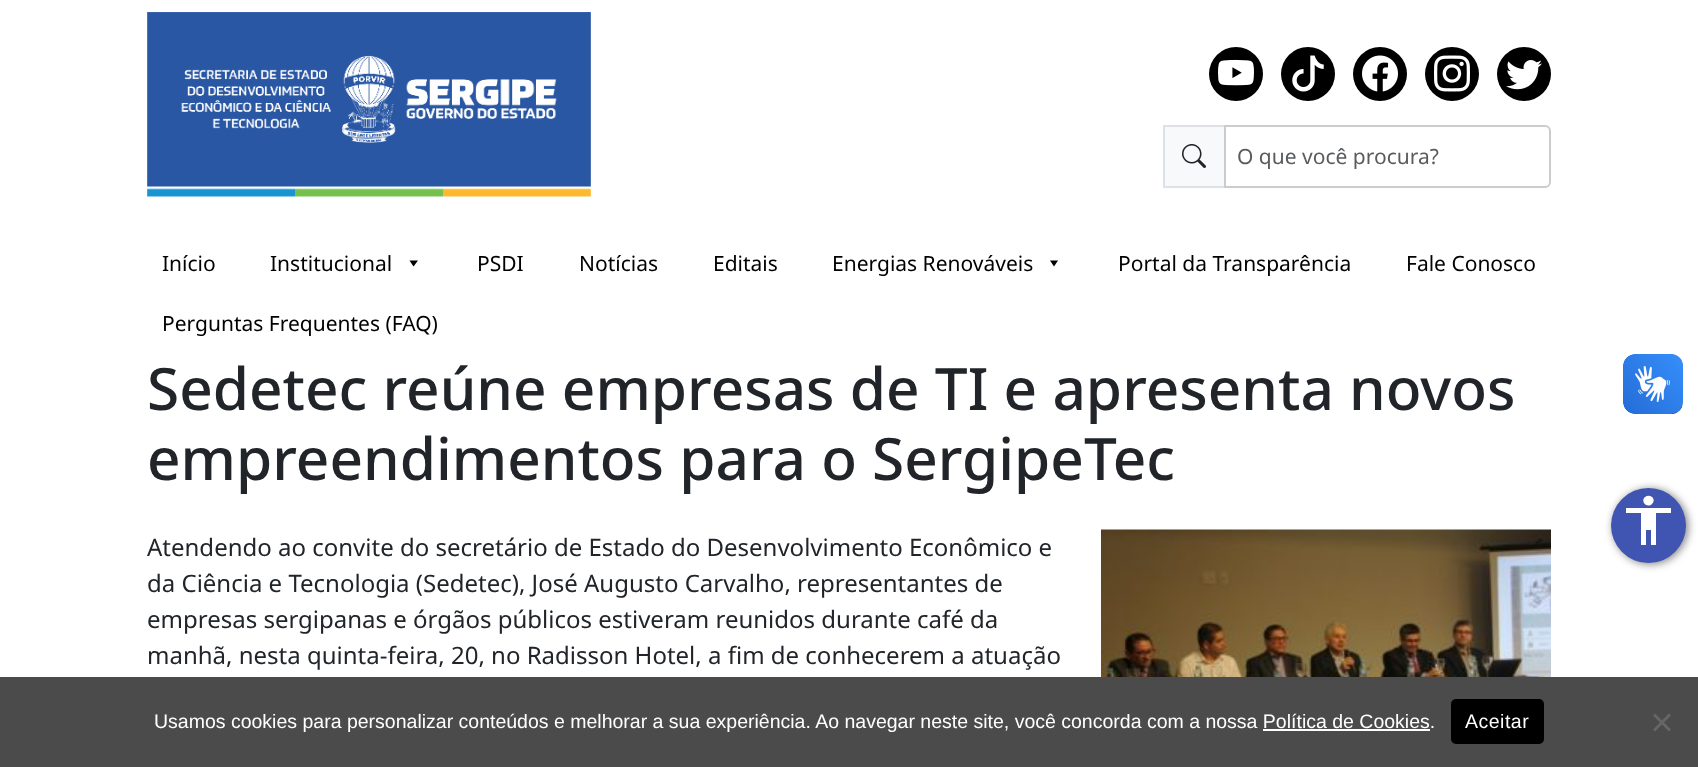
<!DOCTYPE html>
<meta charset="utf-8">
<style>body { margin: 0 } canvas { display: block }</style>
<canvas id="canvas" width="1698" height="767"></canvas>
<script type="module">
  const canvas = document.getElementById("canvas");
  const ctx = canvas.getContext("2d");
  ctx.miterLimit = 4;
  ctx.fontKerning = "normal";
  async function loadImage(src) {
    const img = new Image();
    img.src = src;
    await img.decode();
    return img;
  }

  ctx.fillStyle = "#ffffff";
  ctx.fillRect(0, 0, 1698, 767);
  ctx.drawImage(await loadImage("img1.png"), 147, 12, 444, 185);
  ctx.fillStyle = "#000000";
  ctx.beginPath();
  ctx.arc(1236, 74, 27, 0, Math.PI * 2);
  ctx.fill();
  ctx.drawImage(await loadImage("img2.png"), 1218, 59, 36, 27);
  ctx.beginPath();
  ctx.arc(1308, 74, 27, 0, Math.PI * 2);
  ctx.fill();
  ctx.drawImage(await loadImage("img3.png"), 1292, 55, 32, 37);
  ctx.beginPath();
  ctx.arc(1380, 74, 27, 0, Math.PI * 2);
  ctx.fill();
  ctx.drawImage(await loadImage("img4.png"), 1362, 55, 36, 37);
  ctx.beginPath();
  ctx.arc(1452, 74, 27, 0, Math.PI * 2);
  ctx.fill();
  ctx.drawImage(await loadImage("img5.png"), 1434, 55, 36, 37);
  ctx.beginPath();
  ctx.arc(1524, 74, 27, 0, Math.PI * 2);
  ctx.fill();
  ctx.drawImage(await loadImage("img6.png"), 1506, 60, 36, 30);
  ctx.fillStyle = "#f8f9fa";
  ctx.beginPath();
  ctx.rect(1164, 126, 61, 61);
  ctx.fill();
  ctx.strokeStyle = "#dee2e6";
  ctx.lineWidth = 2;
  ctx.stroke();
  ctx.drawImage(await loadImage("img7.png"), 1182, 144, 24, 24);
  ctx.beginPath();
  ctx.roundRect(1225, 126, 325, 61, [0, 5, 5, 0]);
  ctx.strokeStyle = "#cccccc";
  ctx.stroke();
  ctx.font = "21px Noto Sans";
  ctx.fillStyle = "#595c5f";
  ctx.fillText("O que você procura?", 1237, 164);
  ctx.fillStyle = "#000000";
  ctx.fillText("Início", 162, 271);
  ctx.fillText("Institucional", 270, 271);
  ctx.beginPath();
  ctx.moveTo(418, 260.5);
  ctx.lineTo(413.5, 266.5);
  ctx.lineTo(409.5, 260.5);
  ctx.closePath();
  ctx.fill();
  ctx.fillText("PSDI", 477, 271);
  ctx.fillText("Notícias", 579, 271);
  ctx.fillText("Editais", 713, 271);
  ctx.fillText("Energias Renováveis", 832, 271);
  ctx.beginPath();
  ctx.moveTo(1058, 260.5);
  ctx.lineTo(1054, 266.5);
  ctx.lineTo(1050, 260.5);
  ctx.closePath();
  ctx.fill();
  ctx.fillText("Portal da Transparência", 1118, 271);
  ctx.fillText("Fale Conosco", 1406, 271);
  ctx.fillText("Perguntas Frequentes (FAQ)", 162, 331);
  ctx.font = "500 58.5px Noto Sans";
  ctx.fillStyle = "#212529";
  ctx.fillText("Sedetec reúne empresas de TI e apresenta novos", 147, 410);
  ctx.fillText("empreendimentos para o SergipeTec", 147, 480);
  ctx.font = "24px Noto Sans";
  ctx.fillText("Atendendo ao convite do secretário de Estado do Desenvolvimento Econômico e", 147, 556);
  ctx.drawImage(await loadImage("img8.png"), 1101, 529, 450, 148);
  ctx.fillText("da Ciência e Tecnologia (Sedetec), José Augusto Carvalho, representantes de", 147, 592);
  ctx.fillText("empresas sergipanas e órgãos públicos estiveram reunidos durante café da", 147, 628);
  ctx.fillText("manhã, nesta quinta-feira, 20, no Radisson Hotel, a fim de conhecerem a atuação", 147, 664);
  ctx.drawImage(await loadImage("img9.png"), 1623, 354, 60, 60);
  ctx.drawImage(await loadImage("img10.png"), 1623, 354, 60, 60);
  ctx.fillStyle = "#4b4b4b";
  ctx.fillRect(0, 677, 1698, 90);
  ctx.font = "19.5px Liberation Sans";
  ctx.fillStyle = "#ffffff";
  ctx.fillText("Usamos cookies para personalizar conteúdos e melhorar a sua experiência. Ao navegar neste site, você concorda com a nossa Política de Cookies.", 154, 728);
  ctx.fillRect(1263, 729, 167, 2);
  ctx.fillStyle = "#000000";
  ctx.beginPath();
  ctx.roundRect(1451, 699, 93, 45, 5);
  ctx.fill();
  ctx.letterSpacing = "0.5px";
  ctx.fillStyle = "#ffffff";
  ctx.fillText("Aceitar", 1465, 728);
  ctx.fillStyle = "#666666";
  ctx.beginPath();
  ctx.moveTo(1669, 713.5);
  ctx.lineTo(1671, 715.5);
  ctx.lineTo(1655, 731.5);
  ctx.lineTo(1653, 729.5);
  ctx.closePath();
  ctx.fill();
  ctx.beginPath();
  ctx.moveTo(1653, 715.5);
  ctx.lineTo(1655, 713.5);
  ctx.lineTo(1671, 729.5);
  ctx.lineTo(1669, 731.5);
  ctx.closePath();
  ctx.fill();
  ctx.fillStyle = "rgba(0, 0, 0, 0.5)";
  ctx.filter = "blur(4px)";
  ctx.beginPath();
  ctx.roundRect(1613, 489, 75, 75, 37.5);
  ctx.fill();
  ctx.filter = "none";
  ctx.fillStyle = "#4054b2";
  ctx.beginPath();
  ctx.arc(1648.5, 525.5, 37.5, 0, Math.PI * 2);
  ctx.fill();
  ctx.fillStyle = "#ffffff";
  ctx.beginPath();
  ctx.moveTo(1671, 513);
  ctx.lineTo(1656, 513);
  ctx.lineTo(1656, 545);
  ctx.lineTo(1651, 545);
  ctx.lineTo(1651, 530);
  ctx.lineTo(1646, 530);
  ctx.lineTo(1646, 545);
  ctx.lineTo(1641, 545);
  ctx.lineTo(1641, 513);
  ctx.lineTo(1626, 513);
  ctx.lineTo(1626, 508);
  ctx.lineTo(1671, 508);
  ctx.closePath();
  ctx.moveTo(1645, 497);
  ctx.bezierCurveTo(1650, 493, 1657, 499, 1652, 504);
  ctx.bezierCurveTo(1647, 509, 1640, 501, 1645, 497);
  ctx.closePath();
  ctx.fill();
</script>
